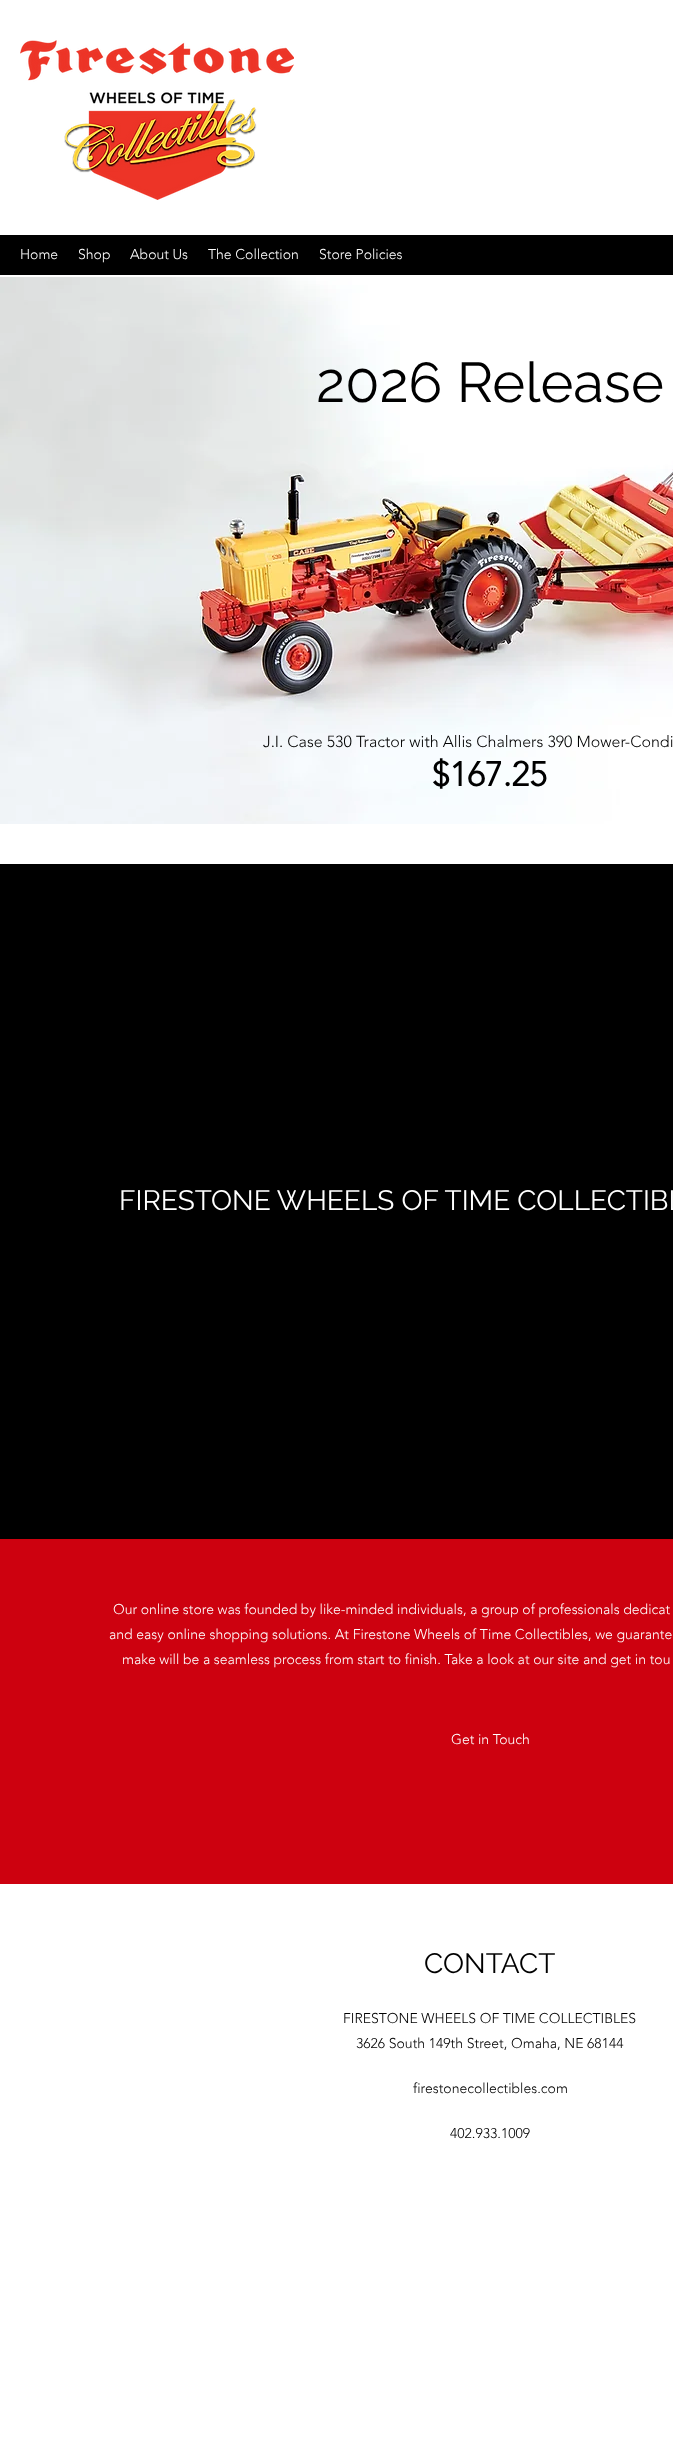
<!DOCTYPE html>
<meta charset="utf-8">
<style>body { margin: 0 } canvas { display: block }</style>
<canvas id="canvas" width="673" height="2442"></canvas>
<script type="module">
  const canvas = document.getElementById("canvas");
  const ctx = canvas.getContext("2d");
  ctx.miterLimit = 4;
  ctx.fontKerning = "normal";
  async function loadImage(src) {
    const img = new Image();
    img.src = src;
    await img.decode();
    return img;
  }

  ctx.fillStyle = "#ffffff";
  ctx.fillRect(0, 0, 673, 2442);
  ctx.drawImage(await loadImage("img1.png"), 20, 40, 274, 160);
  ctx.fillStyle = "#000000";
  ctx.fillRect(0, 235, 673, 40);
  ctx.font = "300 14px 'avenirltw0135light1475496'";
  ctx.fillStyle = "#ffffff";
  ctx.fillText("Home", 20, 259);
  ctx.fillText("Shop", 78, 259);
  ctx.fillText("About Us", 130, 259);
  ctx.fillText("The Collection", 208, 259);
  ctx.fillText("Store Policies", 319, 259);
  ctx.drawImage(await loadImage("img2.png"), 0, 277, 673, 547);
  ctx.font = "56px Raleway";
  ctx.fillStyle = "#000000";
  ctx.fillText("2026 Release", 316, 402);
  ctx.font = "300 16px 'avenirltw0135light1475496'";
  ctx.fillText("J.I. Case 530 Tractor with Allis Chalmers 390 Mower-Condi", 263, 747);
  ctx.font = "bold 34px 'avenirltw0135light1475496'";
  ctx.fillText("$167.25", 432, 786);
  ctx.fillRect(0, 864, 673, 675);
  ctx.font = "28px Raleway";
  ctx.fillStyle = "#ffffff";
  ctx.fillText("FIRESTONE WHEELS OF TIME COLLECTIBL", 119, 1210);
  ctx.fillStyle = "#cd010f";
  ctx.fillRect(0, 1539, 673, 345);
  ctx.font = "300 14px 'avenirltw0135light1475496'";
  ctx.fillStyle = "#ffffff";
  ctx.fillText("Our online store was founded by like-minded individuals, a group of professionals dedicat", 113, 1614);
  ctx.fillText("and easy online shopping solutions. At Firestone Wheels of Time Collectibles, we guarante", 109, 1639);
  ctx.fillText("make will be a seamless process from start to finish. Take a look at our site and get in tou", 122, 1664);
  ctx.fillText("Get in Touch", 451, 1744);
  ctx.font = "28px Raleway";
  ctx.fillStyle = "#000000";
  ctx.fillText("CONTACT", 424, 1973);
  ctx.font = "300 14px 'avenirltw0135light1475496'";
  ctx.fillText("FIRESTONE WHEELS OF TIME COLLECTIBLES", 343, 2023);
  ctx.fillText("3626 South 149th Street, Omaha, NE 68144", 356, 2048);
  ctx.fillText("firestonecollectibles.com", 413, 2093);
  ctx.fillText("402.933.1009", 450, 2138);
</script>
